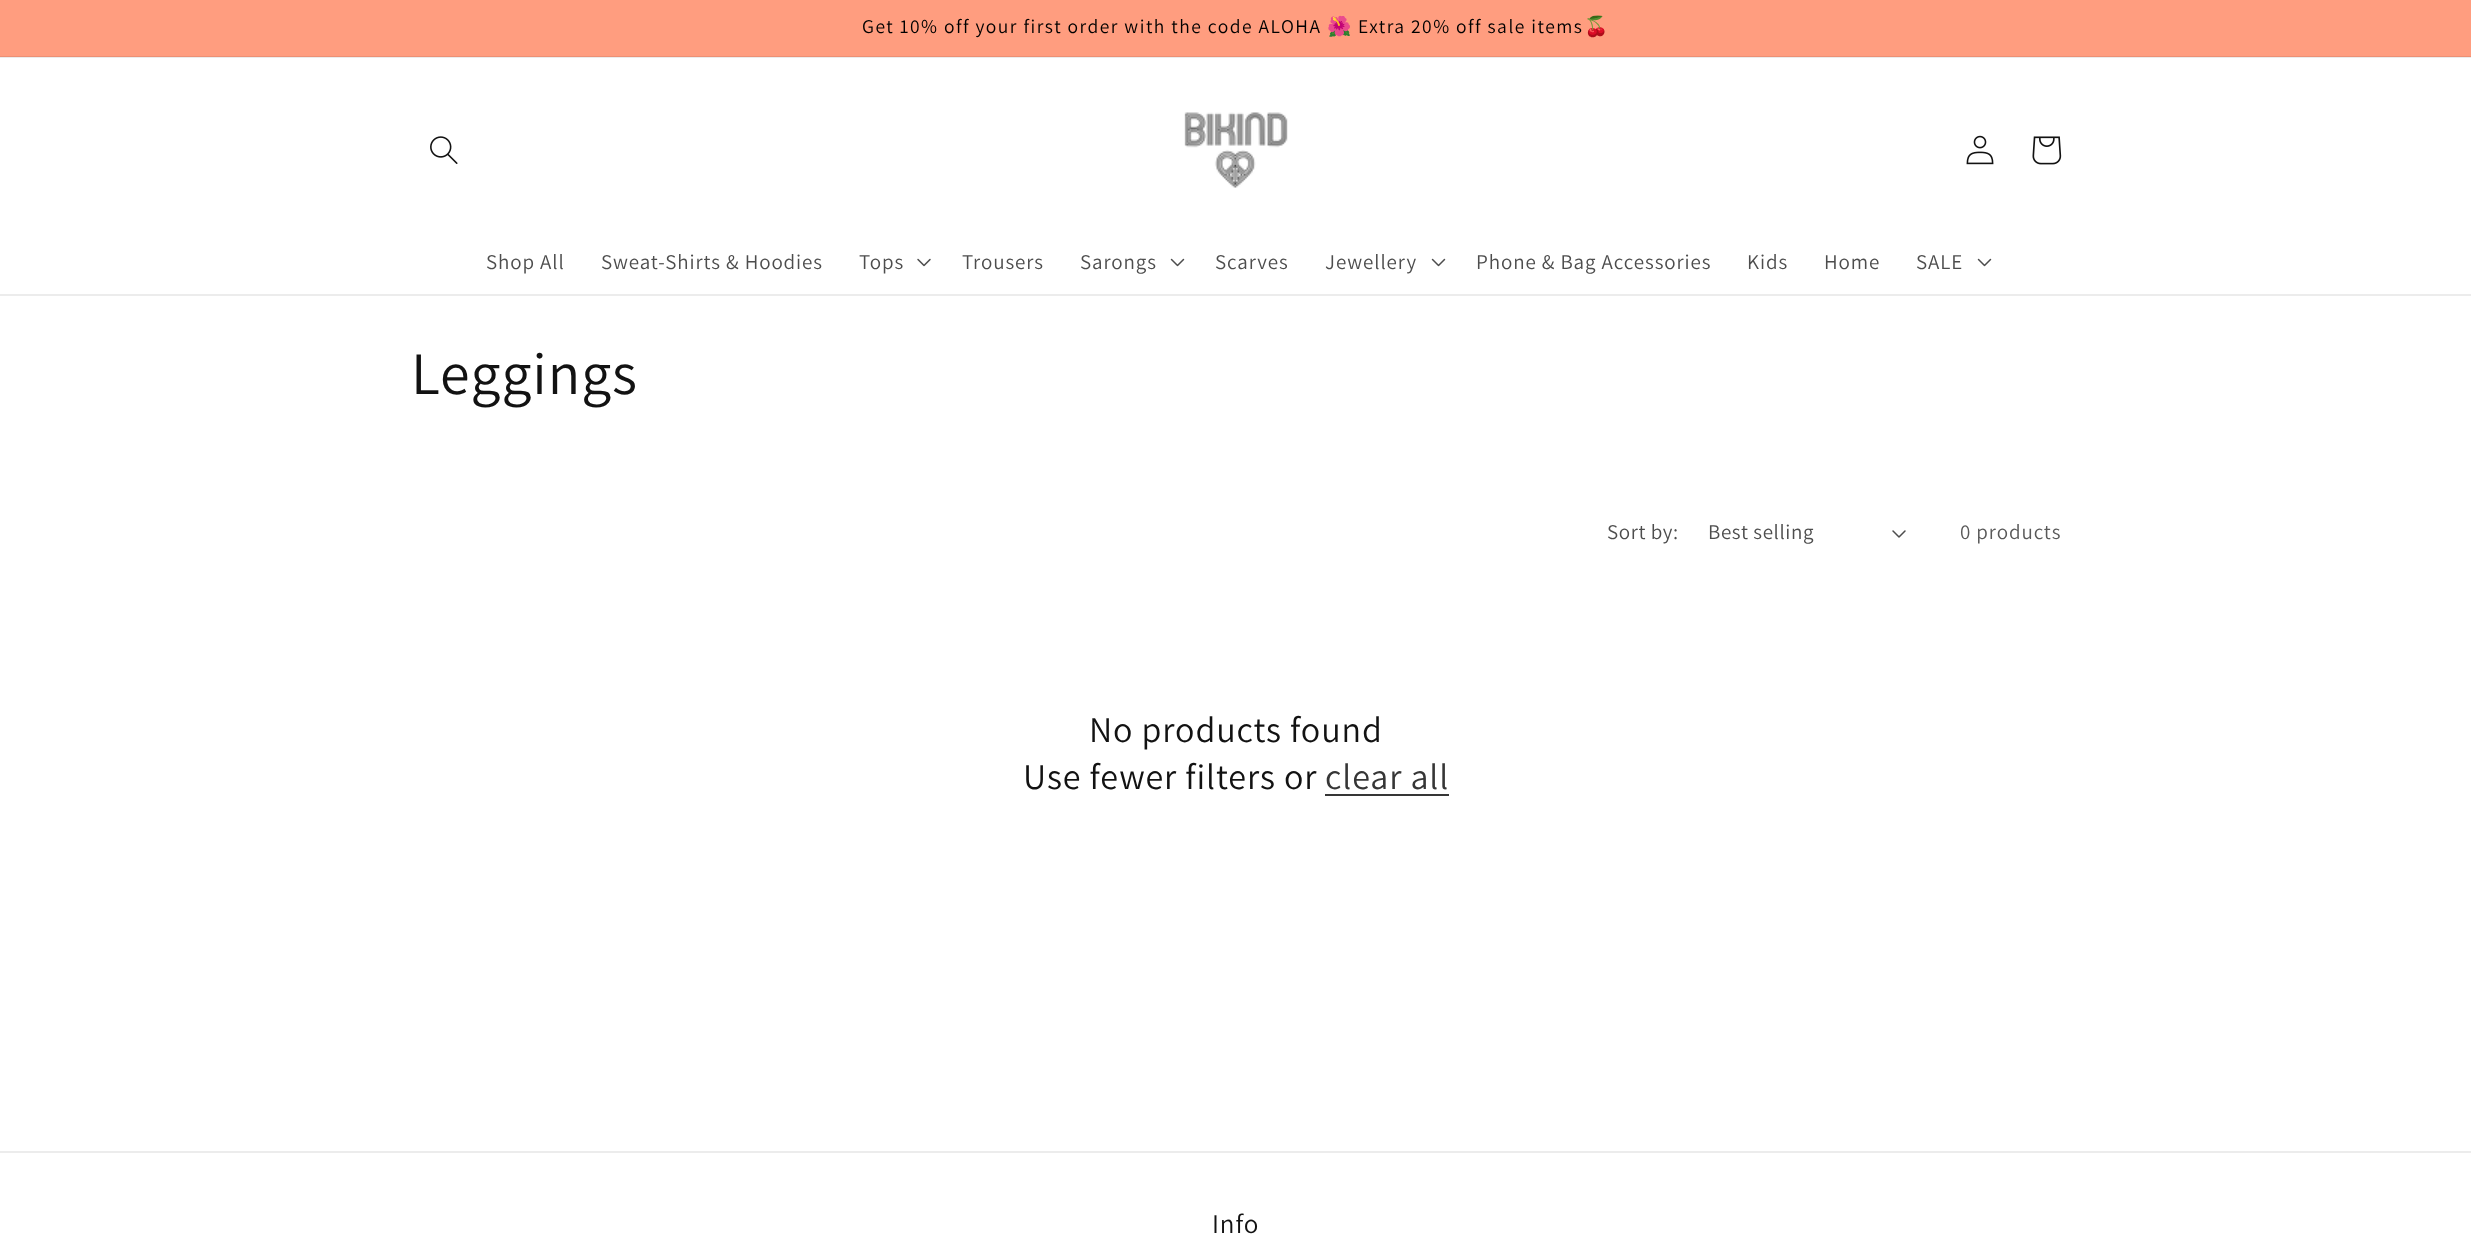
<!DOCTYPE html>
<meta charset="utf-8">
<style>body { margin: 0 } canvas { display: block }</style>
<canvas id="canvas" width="2471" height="1257"></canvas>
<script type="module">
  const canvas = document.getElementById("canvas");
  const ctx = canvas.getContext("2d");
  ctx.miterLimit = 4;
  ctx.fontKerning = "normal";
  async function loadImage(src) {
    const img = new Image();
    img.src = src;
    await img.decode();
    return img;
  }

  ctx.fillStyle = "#ffffff";
  ctx.fillRect(0, 0, 2471, 1257);
  ctx.fillStyle = "#ebebeb";
  ctx.fillRect(0, 57, 2471, 1);
  ctx.fillStyle = "#ff9d7f";
  ctx.fillRect(0, 0, 2471, 56);
  ctx.fillStyle = "#eb9075";
  ctx.fillRect(0, 56, 2471, 1);
  ctx.letterSpacing = "1.5px";
  ctx.font = "19.5px Assistant";
  ctx.fillStyle = "#000000";
  ctx.fillText("Get 10% off your first order with the code ALOHA", 862, 33);
  ctx.font = "19.5px Noto Color Emoji";
  ctx.fillText("🌺", 1327, 33);
  ctx.font = "19.5px Assistant";
  ctx.fillText("Extra 20% off sale items", 1358, 33);
  ctx.font = "19.5px Noto Color Emoji";
  ctx.fillText("🍒", 1584, 33);
  ctx.fillStyle = "#ececec";
  ctx.fillRect(0, 294, 2471, 2);
  ctx.drawImage(await loadImage("img1.png"), 430, 136, 28, 28);
  ctx.drawImage(await loadImage("img2.png"), 1184, 112, 104, 76);
  ctx.drawImage(await loadImage("img3.png"), 1966, 135, 28, 30);
  ctx.drawImage(await loadImage("img4.png"), 2032, 136, 30, 29);
  ctx.letterSpacing = "0.9px";
  ctx.font = "21px Assistant";
  ctx.fillStyle = "#4d4d4d";
  ctx.fillText("Shop All", 486, 269);
  ctx.fillText("Sweat-Shirts & Hoodies", 601, 269);
  ctx.fillText("Tops", 859, 269);
  ctx.drawImage(await loadImage("img5.png"), 917, 258, 14, 9);
  ctx.fillText("Trousers", 962, 269);
  ctx.fillText("Sarongs", 1080, 269);
  ctx.drawImage(await loadImage("img6.png"), 1170, 258, 15, 9);
  ctx.fillText("Scarves", 1215, 269);
  ctx.fillText("Jewellery", 1325, 269);
  ctx.drawImage(await loadImage("img6.png"), 1431, 258, 15, 9);
  ctx.fillText("Phone & Bag Accessories", 1476, 269);
  ctx.fillText("Kids", 1747, 269);
  ctx.fillText("Home", 1824, 269);
  ctx.fillText("SALE", 1916, 269);
  ctx.drawImage(await loadImage("img6.png"), 1977, 258, 15, 9);
  ctx.font = "60px Assistant";
  ctx.fillStyle = "#121212";
  ctx.fillText("Leggings", 411, 394);
  ctx.letterSpacing = "0.6px";
  ctx.font = "21px Assistant";
  ctx.fillStyle = "#4d4d4d";
  ctx.fillText("Sort by:", 1607, 539);
  ctx.fillText("Best selling", 1708, 539);
  ctx.drawImage(await loadImage("img7.png"), 1892, 530, 14, 8);
  ctx.letterSpacing = "0.9px";
  ctx.fillStyle = "#595959";
  ctx.fillText("0 products", 1960, 539);
  ctx.font = "36px Assistant";
  ctx.fillStyle = "#121212";
  ctx.fillText("No products found", 1089, 742);
  ctx.fillText("Use fewer filters or", 1023, 789);
  ctx.fillStyle = "#363636";
  ctx.fillText("clear all", 1325, 789);
  ctx.fillRect(1325, 794, 124, 2);
  ctx.fillStyle = "#ececec";
  ctx.fillRect(0, 1151, 2471, 2);
  ctx.font = "27px Assistant";
  ctx.fillStyle = "#121212";
  ctx.fillText("Info", 1212, 1233);
</script>
